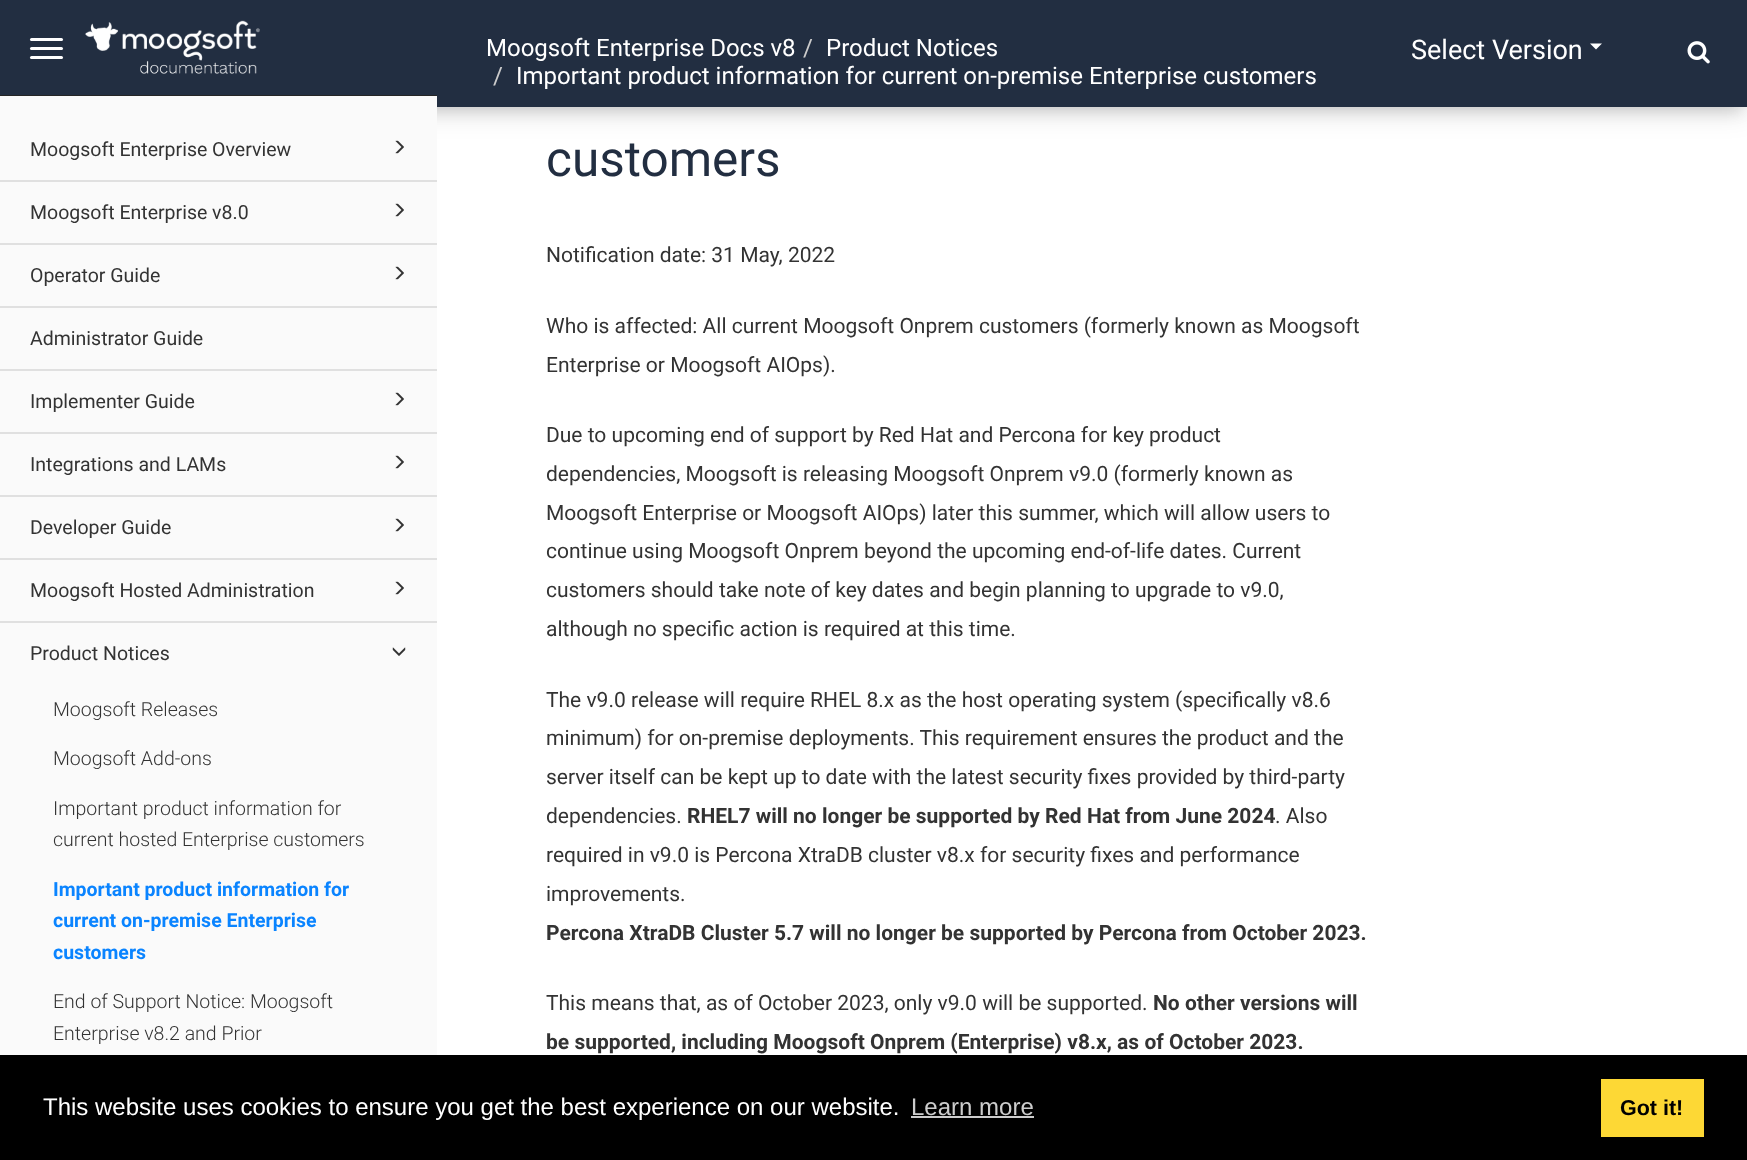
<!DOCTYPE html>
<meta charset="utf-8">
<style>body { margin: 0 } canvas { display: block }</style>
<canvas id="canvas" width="1747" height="1160"></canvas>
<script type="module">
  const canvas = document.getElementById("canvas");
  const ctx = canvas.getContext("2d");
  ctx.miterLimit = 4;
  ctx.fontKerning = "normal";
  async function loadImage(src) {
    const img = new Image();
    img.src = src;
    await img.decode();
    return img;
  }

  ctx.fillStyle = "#ffffff";
  ctx.fillRect(0, 0, 1747, 1160);
  ctx.fillStyle = "rgba(0, 0, 0, 0.15)";
  ctx.filter = "blur(7.5px)";
  ctx.beginPath();
  ctx.rect(8, 18, 1732, 92);
  ctx.fill();
  ctx.filter = "none";
  ctx.fillStyle = "rgba(0, 0, 0, 0.12)";
  ctx.filter = "blur(13.5px)";
  ctx.beginPath();
  ctx.rect(0, 6, 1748, 107);
  ctx.fill();
  ctx.filter = "none";
  ctx.fillStyle = "#222e41";
  ctx.fillRect(0, 0, 437, 95);
  ctx.fillStyle = "#252525";
  ctx.fillRect(0, 95, 437, 1);
  ctx.fillStyle = "#ffffff";
  ctx.beginPath();
  ctx.roundRect(30, 38, 33, 3, 1.5);
  ctx.fill();
  ctx.beginPath();
  ctx.roundRect(30, 47, 33, 3, 1.5);
  ctx.fill();
  ctx.beginPath();
  ctx.roundRect(30, 56, 33, 3, 1.5);
  ctx.fill();
  ctx.drawImage(await loadImage("img1.png"), 85, 20, 175, 54);
  ctx.fillStyle = "#fafafa";
  ctx.fillRect(0, 96, 437, 959);
  ctx.fillStyle = "#e0e0e0";
  ctx.fillRect(0, 180, 437, 2);
  ctx.font = "19.5px Roboto";
  ctx.fillStyle = "#333333";
  ctx.fillText("Moogsoft Enterprise Overview", 30, 156);
  ctx.drawImage(await loadImage("img2.png"), 395, 140, 9, 14);
  ctx.fillStyle = "#e0e0e0";
  ctx.fillRect(0, 243, 437, 2);
  ctx.fillStyle = "#333333";
  ctx.fillText("Moogsoft Enterprise v8.0", 30, 219);
  ctx.drawImage(await loadImage("img2.png"), 395, 203, 9, 14);
  ctx.fillStyle = "#e0e0e0";
  ctx.fillRect(0, 306, 437, 2);
  ctx.fillStyle = "#333333";
  ctx.fillText("Operator Guide", 30, 282);
  ctx.drawImage(await loadImage("img2.png"), 395, 266, 9, 14);
  ctx.fillStyle = "#e0e0e0";
  ctx.fillRect(0, 369, 437, 2);
  ctx.fillStyle = "#333333";
  ctx.fillText("Administrator Guide", 30, 345);
  ctx.fillStyle = "#e0e0e0";
  ctx.fillRect(0, 432, 437, 2);
  ctx.fillStyle = "#333333";
  ctx.fillText("Implementer Guide", 30, 408);
  ctx.drawImage(await loadImage("img2.png"), 395, 392, 9, 14);
  ctx.fillStyle = "#e0e0e0";
  ctx.fillRect(0, 495, 437, 2);
  ctx.fillStyle = "#333333";
  ctx.fillText("Integrations and LAMs", 30, 471);
  ctx.drawImage(await loadImage("img2.png"), 395, 455, 9, 14);
  ctx.fillStyle = "#e0e0e0";
  ctx.fillRect(0, 558, 437, 2);
  ctx.fillStyle = "#333333";
  ctx.fillText("Developer Guide", 30, 534);
  ctx.drawImage(await loadImage("img2.png"), 395, 518, 9, 14);
  ctx.fillStyle = "#e0e0e0";
  ctx.fillRect(0, 621, 437, 2);
  ctx.fillStyle = "#333333";
  ctx.fillText("Moogsoft Hosted Administration", 30, 597);
  ctx.drawImage(await loadImage("img2.png"), 395, 581, 9, 14);
  ctx.fillText("Product Notices", 30, 660);
  ctx.drawImage(await loadImage("img3.png"), 392, 647, 14, 9);
  ctx.font = "300 19.5px Roboto";
  ctx.fillText("Moogsoft Releases", 53, 716);
  ctx.fillText("Moogsoft Add-ons", 53, 765);
  ctx.fillText("Important product information for", 53, 815);
  ctx.fillText("current hosted Enterprise customers", 53, 846);
  ctx.font = "bold 19.5px Roboto";
  ctx.fillStyle = "#0a84ff";
  ctx.fillText("Important product information for", 53, 896);
  ctx.fillText("current on-premise Enterprise", 53, 927);
  ctx.fillText("customers", 53, 959);
  ctx.font = "300 19.5px Roboto";
  ctx.fillStyle = "#333333";
  ctx.fillText("End of Support Notice: Moogsoft", 53, 1008);
  ctx.fillText("Enterprise v8.2 and Prior", 53, 1040);
  ctx.fillStyle = "#222e41";
  ctx.fillRect(437, 0, 1310, 107);
  ctx.font = "24px Roboto";
  ctx.fillStyle = "#ffffff";
  ctx.fillText("Moogsoft Enterprise Docs v8", 486, 56);
  ctx.fillStyle = "#cccccc";
  ctx.fillText("/", 803, 56);
  ctx.fillStyle = "#ffffff";
  ctx.fillText("Product Notices", 826, 56);
  ctx.fillStyle = "#cccccc";
  ctx.fillText("/", 493, 84);
  ctx.fillStyle = "#ffffff";
  ctx.fillText("Important product information for current on-premise Enterprise customers", 516, 84);
  ctx.font = "27px Roboto";
  ctx.fillText("Select Version", 1411, 59);
  ctx.beginPath();
  ctx.moveTo(1590, 43.5);
  ctx.lineTo(1602, 43.5);
  ctx.lineTo(1596, 49.5);
  ctx.closePath();
  ctx.fill();
  ctx.drawImage(await loadImage("img4.png"), 1687, 41, 23, 23);
  ctx.font = "49.5px Roboto";
  ctx.fillStyle = "#222e41";
  ctx.fillText("customers", 546, 176);
  ctx.font = "21px Roboto";
  ctx.fillStyle = "#333333";
  ctx.fillText("Notification date: 31 May, 2022", 546, 262);
  ctx.fillText("Who is affected: All current Moogsoft Onprem customers (formerly known as Moogsoft", 546, 333);
  ctx.fillText("Enterprise or Moogsoft AIOps).", 546, 372);
  ctx.fillText("Due to upcoming end of support by Red Hat and Percona for key product", 546, 442);
  ctx.fillText("dependencies, Moogsoft is releasing Moogsoft Onprem v9.0 (formerly known as", 546, 481);
  ctx.fillText("Moogsoft Enterprise or Moogsoft AIOps) later this summer, which will allow users to", 546, 520);
  ctx.fillText("continue using Moogsoft Onprem beyond the upcoming end-of-life dates. Current", 546, 558);
  ctx.fillText("customers should take note of key dates and begin planning to upgrade to v9.0,", 546, 597);
  ctx.fillText("although no specific action is required at this time.", 546, 636);
  ctx.fillText("The v9.0 release will require RHEL 8.x as the host operating system (specifically v8.6", 546, 707);
  ctx.fillText("minimum) for on-premise deployments. This requirement ensures the product and the", 546, 745);
  ctx.fillText("server itself can be kept up to date with the latest security fixes provided by third-party", 546, 784);
  ctx.fillText("dependencies.", 546, 823);
  ctx.font = "bold 21px Roboto";
  ctx.fillText("RHEL7 will no longer be supported by Red Hat from June 2024", 687, 823);
  ctx.font = "21px Roboto";
  ctx.fillText(". Also", 1275, 823);
  ctx.fillText("required in v9.0 is Percona XtraDB cluster v8.x for security fixes and performance", 546, 862);
  ctx.fillText("improvements.", 546, 901);
  ctx.font = "bold 21px Roboto";
  ctx.fillText("Percona XtraDB Cluster 5.7 will no longer be supported by Percona from October 2023.", 546, 940);
  ctx.font = "21px Roboto";
  ctx.fillText("This means that, as of October 2023, only v9.0 will be supported.", 546, 1010);
  ctx.font = "bold 21px Roboto";
  ctx.fillText("No other versions will", 1153, 1010);
  ctx.fillText("be supported, including Moogsoft Onprem (Enterprise) v8.x, as of October 2023.", 546, 1049);
  ctx.fillStyle = "#000000";
  ctx.fillRect(0, 1055, 1747, 105);
  ctx.font = "24px Liberation Sans";
  ctx.fillStyle = "#ffffff";
  ctx.fillText("This website uses cookies to ensure you get the best experience on our website.", 43, 1115);
  ctx.fillStyle = "#cccccc";
  ctx.fillText("Learn more", 911, 1115);
  ctx.fillRect(911, 1116, 123, 2);
  ctx.fillStyle = "#fdd835";
  ctx.fillRect(1601, 1079, 103, 58);
  ctx.font = "bold 21.5px Liberation Sans";
  ctx.fillStyle = "#000000";
  ctx.fillText("Got it!", 1620, 1115);
</script>
